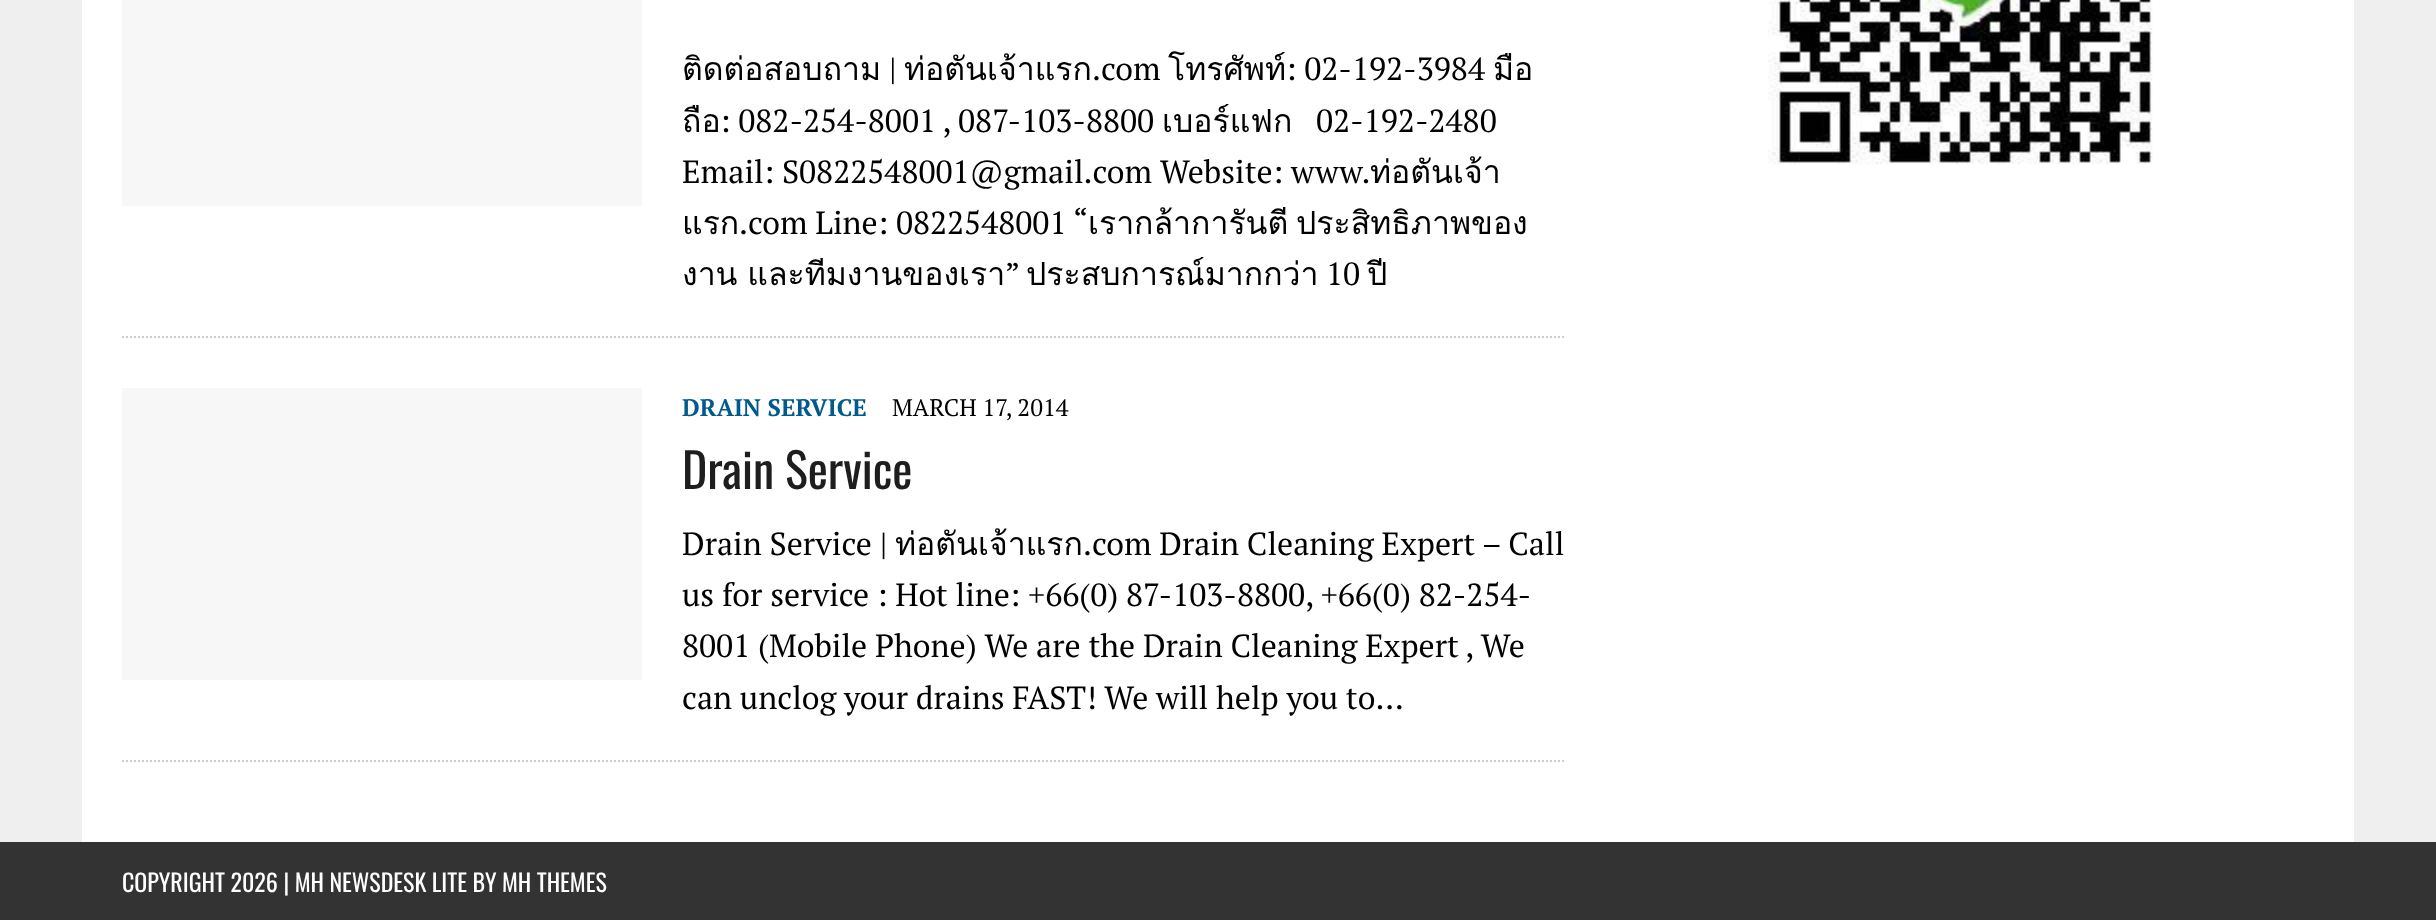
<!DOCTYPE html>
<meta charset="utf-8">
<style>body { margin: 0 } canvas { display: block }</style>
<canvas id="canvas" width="2436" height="920"></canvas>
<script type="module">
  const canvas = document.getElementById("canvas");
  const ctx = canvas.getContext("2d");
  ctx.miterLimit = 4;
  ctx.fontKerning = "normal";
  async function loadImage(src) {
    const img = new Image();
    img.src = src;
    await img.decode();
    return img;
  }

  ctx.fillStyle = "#efefef";
  ctx.fillRect(0, 0, 2436, 920);
  ctx.fillStyle = "#ffffff";
  ctx.fillRect(82, 0, 2272, 842);
  ctx.fillStyle = "#f7f7f7";
  ctx.fillRect(122, 0, 520, 206);
  ctx.save();
  ctx.beginPath();
  ctx.rect(682, 44, 884, 256);
  ctx.clip();
  ctx.font = "32px Loma";
  ctx.fillStyle = "#000000";
  ctx.fillText("ติดต่อสอบถาม", 682, 80);
  ctx.restore();
  ctx.font = "32px PT Serif";
  ctx.fillStyle = "#000000";
  ctx.fillText("|", 889, 80);
  ctx.font = "32px Loma";
  ctx.fillText("ท่อตันเจ้าแรก", 904, 80);
  ctx.font = "32px PT Serif";
  ctx.fillText(".com", 1092, 80);
  ctx.font = "32px Loma";
  ctx.fillText("โทรศัพท์", 1168, 80);
  ctx.font = "32px PT Serif";
  ctx.fillText(": 02-192-3984", 1286, 80);
  ctx.font = "32px Loma";
  ctx.fillText("มือ", 1493, 80);
  ctx.save();
  ctx.beginPath();
  ctx.rect(682, 44, 884, 256);
  ctx.clip();
  ctx.fillText("ถือ", 682, 132);
  ctx.restore();
  ctx.font = "32px PT Serif";
  ctx.fillText(": 082-254-8001 , 087-103-8800", 720, 132);
  ctx.font = "32px Loma";
  ctx.fillText("เบอร์แฟก", 1162, 132);
  ctx.font = "32px PT Serif";
  ctx.fillText("02-192-2480", 1316, 132);
  ctx.fillText("Email: S0822548001@gmail.com Website: www.", 682, 183);
  ctx.font = "32px Loma";
  ctx.fillText("ท่อตันเจ้า", 1370, 183);
  ctx.fillText("แรก", 682, 234);
  ctx.font = "32px PT Serif";
  ctx.fillText(".com Line: 0822548001 “", 739, 234);
  ctx.font = "32px Loma";
  ctx.fillText("เรากล้าการันตี", 1088, 234);
  ctx.fillText("ประสิทธิภาพของ", 1296, 234);
  ctx.wordSpacing = "-1px";
  ctx.fillText("งาน และทีมงานของเรา", 682, 285);
  ctx.wordSpacing = "0px";
  ctx.font = "32px PT Serif";
  ctx.fillText("”", 1005, 285);
  ctx.font = "32px Loma";
  ctx.fillText("ประสบการณ์มากกว่า", 1026, 285);
  ctx.font = "32px PT Serif";
  ctx.fillText("10", 1326, 285);
  ctx.font = "32px Loma";
  ctx.fillText("ปี", 1367, 285);
  ctx.beginPath();
  ctx.moveTo(122, 337);
  ctx.lineTo(1566, 337);
  ctx.strokeStyle = "#cdcdcd";
  ctx.lineWidth = 2;
  ctx.setLineDash([2, 2]);
  ctx.stroke();
  ctx.fillStyle = "#f7f7f7";
  ctx.fillRect(122, 388, 520, 292);
  ctx.font = "bold 24px PT Serif";
  ctx.fillStyle = "#005a8c";
  ctx.fillText("DRAIN SERVICE", 682, 416);
  ctx.font = "24px PT Serif";
  ctx.fillStyle = "#000000";
  ctx.fillText("MARCH 17, 2014", 892, 416);
  ctx.font = "48px Oswald";
  ctx.fillStyle = "#1f1e1e";
  ctx.fillText("Drain Service", 682, 489);
  ctx.font = "32px PT Serif";
  ctx.fillStyle = "#000000";
  ctx.fillText("Drain Service |", 682, 555);
  ctx.font = "32px Loma";
  ctx.fillText("ท่อตันเจ้าแรก", 895, 555);
  ctx.font = "32px PT Serif";
  ctx.fillText(".com Drain Cleaning Expert – Call", 1083, 555);
  ctx.fillText("us for service : Hot line: +66(0) 87-103-8800, +66(0) 82-254-", 682, 606);
  ctx.fillText("8001 (Mobile Phone) We are the Drain Cleaning Expert , We", 682, 657);
  ctx.fillText("can unclog your drains FAST! We will help you to…", 682, 709);
  ctx.beginPath();
  ctx.moveTo(122, 761);
  ctx.lineTo(1566, 761);
  ctx.stroke();
  ctx.drawImage(await loadImage("img1.png"), 1768, 0, 385, 165);
  ctx.fillStyle = "#333333";
  ctx.fillRect(0, 842, 2436, 78);
  ctx.font = "24px Oswald";
  ctx.fillStyle = "#ffffff";
  ctx.fillText("COPYRIGHT 2026 | MH NEWSDESK LITE BY MH THEMES", 122, 892);
</script>
